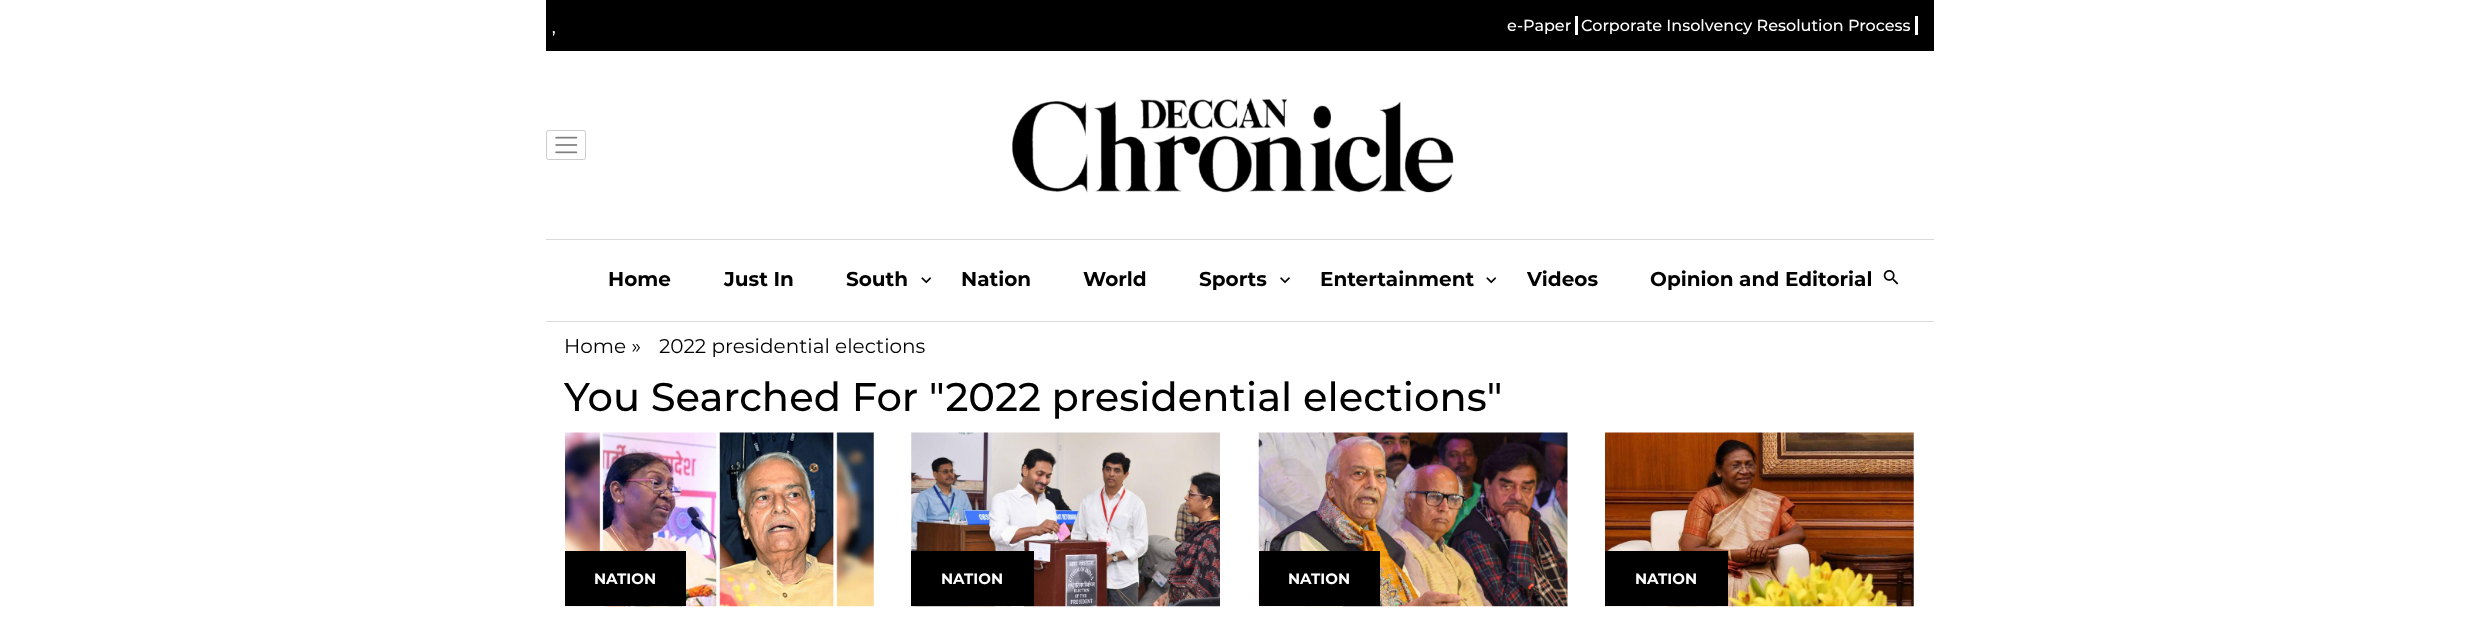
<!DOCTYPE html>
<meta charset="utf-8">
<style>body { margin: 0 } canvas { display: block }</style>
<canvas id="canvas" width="2478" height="631"></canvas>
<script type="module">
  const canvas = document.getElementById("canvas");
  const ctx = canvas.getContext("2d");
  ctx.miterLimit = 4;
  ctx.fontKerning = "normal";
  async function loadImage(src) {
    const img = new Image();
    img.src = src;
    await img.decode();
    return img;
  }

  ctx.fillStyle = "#ffffff";
  ctx.fillRect(0, 0, 2478, 631);
  ctx.fillStyle = "#000000";
  ctx.fillRect(546, 0, 1388, 51);
  ctx.font = "500 16px Montserrat";
  ctx.fillStyle = "#ffffff";
  ctx.fillText(",", 552, 33);
  ctx.fillText("e-Paper", 1507, 31);
  ctx.fillRect(1575, 16, 3, 19);
  ctx.fillText("Corporate Insolvency Resolution Process", 1581, 31);
  ctx.fillRect(1915, 16, 3, 19);
  ctx.fillStyle = "#dbdbdb";
  ctx.fillRect(546, 239, 1388, 1);
  ctx.drawImage(await loadImage("img1.png"), 555, 136, 23, 18);
  ctx.beginPath();
  ctx.roundRect(546.5, 130.5, 39, 29, 2);
  ctx.strokeStyle = "#cccccc";
  ctx.stroke();
  ctx.drawImage(await loadImage("img2.png"), 1012, 98, 442, 95);
  ctx.fillRect(546, 321, 1388, 1);
  ctx.font = "bold 20px Montserrat";
  ctx.fillStyle = "#000000";
  ctx.fillText("Home", 608, 286);
  ctx.fillText("Just In", 724, 286);
  ctx.fillText("South", 846, 286);
  ctx.drawImage(await loadImage("img3.png"), 921, 277, 11, 7);
  ctx.fillText("Nation", 961, 286);
  ctx.fillText("World", 1083, 286);
  ctx.fillText("Sports", 1199, 286);
  ctx.drawImage(await loadImage("img4.png"), 1280, 277, 10, 7);
  ctx.fillText("Entertainment", 1320, 286);
  ctx.drawImage(await loadImage("img3.png"), 1486, 277, 11, 7);
  ctx.fillText("Videos", 1527, 286);
  ctx.save();
  ctx.beginPath();
  ctx.rect(609, 240, 1262, 81);
  ctx.clip();
  ctx.fillText("Opinion and Editorial", 1650, 286);
  ctx.restore();
  ctx.drawImage(await loadImage("img5.png"), 1883, 270, 16, 15);
  ctx.font = "20px Montserrat";
  ctx.fillText("Home »", 564, 353);
  ctx.fillText("2022 presidential elections", 659, 353);
  ctx.font = "500 40px Montserrat";
  ctx.fillText("You Searched For \"2022 presidential elections\"", 564, 411);
  ctx.drawImage(await loadImage("img6.png"), 565, 432, 309, 175);
  ctx.fillRect(565, 551, 121, 55);
  ctx.font = "bold 15px Montserrat";
  ctx.fillStyle = "#ffffff";
  ctx.fillText("NATION", 594, 584);
  ctx.drawImage(await loadImage("img7.png"), 911, 432, 309, 175);
  ctx.fillStyle = "#000000";
  ctx.fillRect(911, 551, 123, 55);
  ctx.fillStyle = "#ffffff";
  ctx.fillText("NATION", 941, 584);
  ctx.drawImage(await loadImage("img8.png"), 1258, 432, 310, 175);
  ctx.fillStyle = "#000000";
  ctx.fillRect(1259, 551, 121, 55);
  ctx.fillStyle = "#ffffff";
  ctx.fillText("NATION", 1288, 584);
  ctx.drawImage(await loadImage("img9.png"), 1605, 432, 309, 175);
  ctx.fillStyle = "#000000";
  ctx.fillRect(1605, 551, 123, 55);
  ctx.fillStyle = "#ffffff";
  ctx.fillText("NATION", 1635, 584);
</script>
